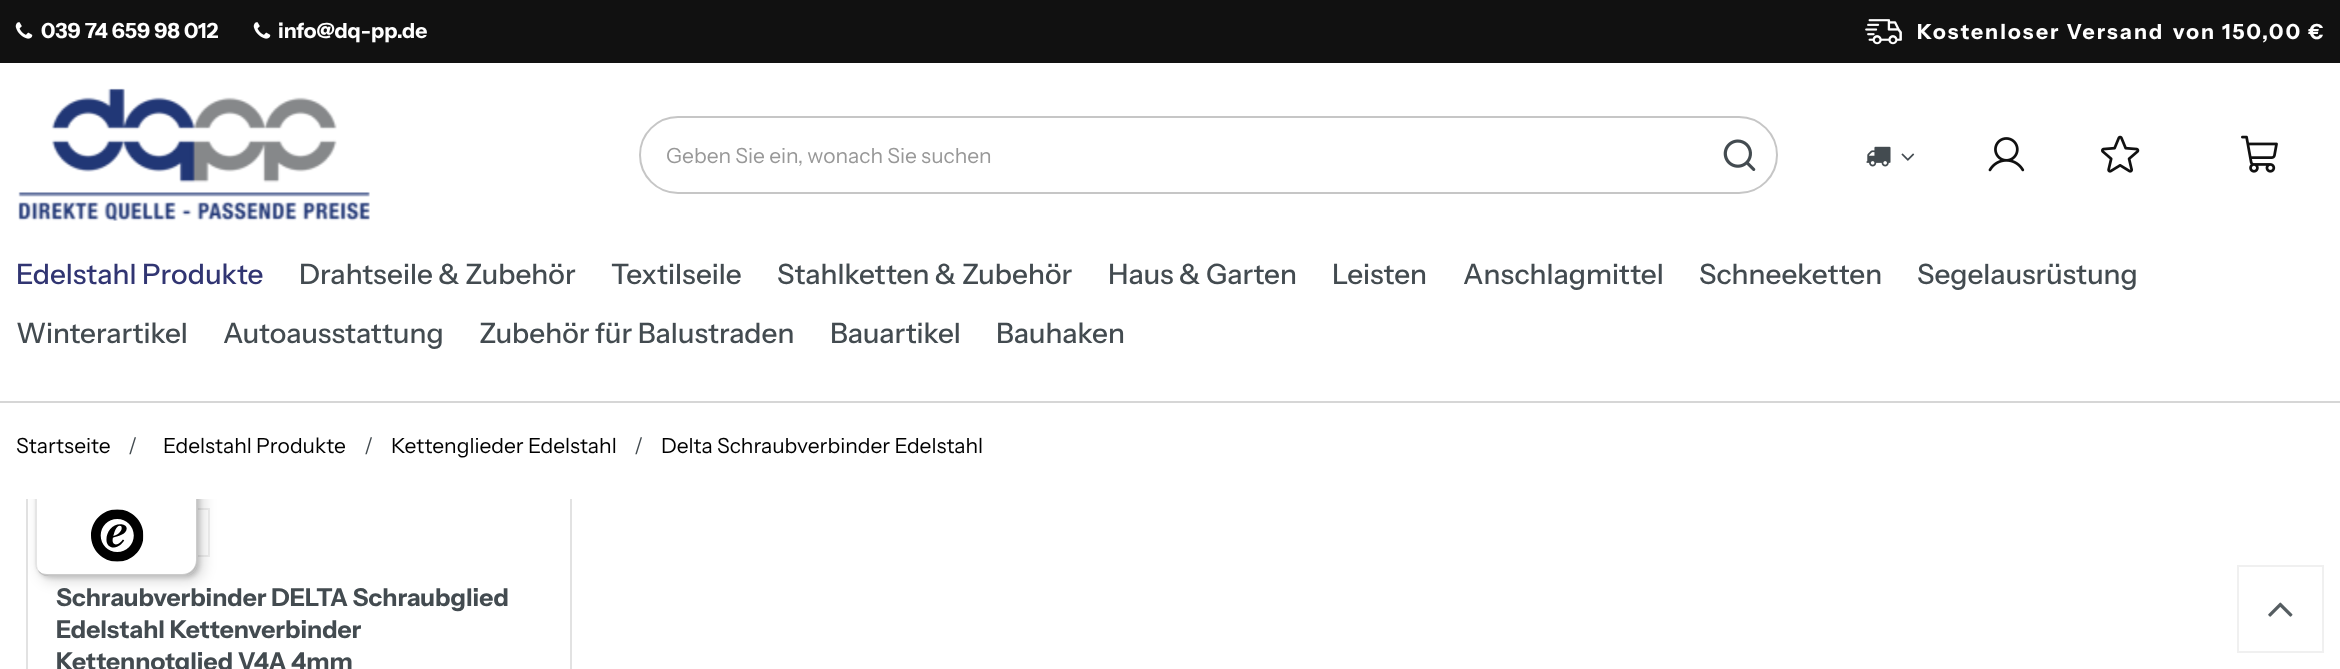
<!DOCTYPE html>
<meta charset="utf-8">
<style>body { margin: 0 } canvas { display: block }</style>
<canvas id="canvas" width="2340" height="669"></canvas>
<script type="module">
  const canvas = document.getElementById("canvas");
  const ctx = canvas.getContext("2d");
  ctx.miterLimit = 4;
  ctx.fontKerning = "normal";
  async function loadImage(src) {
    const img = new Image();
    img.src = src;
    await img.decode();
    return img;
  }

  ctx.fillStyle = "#ffffff";
  ctx.fillRect(0, 0, 2340, 669);
  ctx.strokeStyle = "#e2e2e2";
  ctx.lineWidth = 2;
  ctx.strokeRect(27, 129, 544, 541);
  ctx.strokeStyle = "#eeeeee";
  ctx.strokeRect(57, 509, 152, 47);
  ctx.fillStyle = "rgba(0, 0, 0, 0.15)";
  ctx.filter = "blur(7px)";
  ctx.beginPath();
  ctx.roundRect(40, 394, 163, 187, 14);
  ctx.fill();
  ctx.filter = "none";
  ctx.filter = "blur(2px)";
  ctx.beginPath();
  ctx.roundRect(37, 390, 163, 188, 14);
  ctx.fill();
  ctx.filter = "none";
  ctx.fillStyle = "#ffffff";
  ctx.beginPath();
  ctx.roundRect(35, 389, 163, 187, 14);
  ctx.fill();
  ctx.fillStyle = "rgba(0, 0, 0, 0.1)";
  ctx.beginPath();
  ctx.moveTo(51, 390);
  ctx.lineTo(186, 390);
  ctx.bezierCurveTo(188, 390, 191, 391, 193, 392);
  ctx.bezierCurveTo(190, 390, 187, 389, 184, 389);
  ctx.lineTo(49, 389);
  ctx.bezierCurveTo(41, 389, 35, 395, 35, 403);
  ctx.lineTo(35, 562);
  ctx.bezierCurveTo(35, 567, 37, 571, 41, 573);
  ctx.bezierCurveTo(38, 571, 37, 567, 37, 564);
  ctx.lineTo(37, 404);
  ctx.bezierCurveTo(37, 397, 43, 390, 51, 390);
  ctx.closePath();
  ctx.fill();
  ctx.fillStyle = "rgba(0, 0, 0, 0.2)";
  ctx.beginPath();
  ctx.moveTo(38, 570);
  ctx.bezierCurveTo(40, 574, 44, 576, 49, 576);
  ctx.lineTo(184, 576);
  ctx.bezierCurveTo(192, 576, 198, 570, 198, 562);
  ctx.lineTo(198, 403);
  ctx.bezierCurveTo(198, 399, 196, 395, 193, 393);
  ctx.bezierCurveTo(195, 395, 196, 398, 196, 401);
  ctx.lineTo(196, 560);
  ctx.bezierCurveTo(196, 568, 190, 574, 182, 574);
  ctx.lineTo(47, 574);
  ctx.bezierCurveTo(44, 574, 40, 573, 38, 570);
  ctx.closePath();
  ctx.fill();
  ctx.fillStyle = "rgba(50, 50, 50, 0.2)";
  ctx.beginPath();
  ctx.moveTo(38, 570);
  ctx.bezierCurveTo(40, 574, 44, 576, 49, 576);
  ctx.lineTo(184, 576);
  ctx.bezierCurveTo(192, 576, 198, 570, 198, 562);
  ctx.lineTo(198, 403);
  ctx.bezierCurveTo(198, 400, 197, 397, 195, 394);
  ctx.bezierCurveTo(196, 396, 197, 399, 197, 401);
  ctx.lineTo(197, 561);
  ctx.bezierCurveTo(197, 568, 190, 575, 183, 575);
  ctx.lineTo(48, 575);
  ctx.bezierCurveTo(44, 575, 40, 573, 38, 570);
  ctx.closePath();
  ctx.fill();
  ctx.fillStyle = "rgba(255, 255, 255, 0.3)";
  ctx.beginPath();
  ctx.moveTo(40, 572);
  ctx.bezierCurveTo(42, 575, 45, 576, 49, 576);
  ctx.lineTo(184, 576);
  ctx.bezierCurveTo(192, 576, 198, 570, 198, 562);
  ctx.lineTo(198, 403);
  ctx.bezierCurveTo(198, 399, 197, 396, 194, 394);
  ctx.bezierCurveTo(196, 396, 197, 399, 197, 402);
  ctx.lineTo(197, 561);
  ctx.bezierCurveTo(197, 569, 191, 575, 183, 575);
  ctx.lineTo(48, 575);
  ctx.bezierCurveTo(45, 575, 42, 574, 40, 572);
  ctx.closePath();
  ctx.fill();
  ctx.fillStyle = "#ffffff";
  ctx.fillRect(26, 128, 546, 371);
  ctx.fillStyle = "#111111";
  ctx.fillRect(0, 0, 2340, 63);
  ctx.drawImage(await loadImage("img1.png"), 15, 22, 18, 17);
  ctx.font = "bold 21px Instrument Sans";
  ctx.fillStyle = "#ffffff";
  ctx.fillText("039 74 659 98 012", 41, 38);
  ctx.drawImage(await loadImage("img1.png"), 253, 22, 18, 17);
  ctx.fillText("info@dq-pp.de", 278, 38);
  ctx.drawImage(await loadImage("img2.png"), 1865, 19, 37, 26);
  ctx.letterSpacing = "2.1px";
  ctx.fillText("Kostenloser Versand", 1917, 39);
  ctx.fillText("von 150,00 €", 2173, 39);
  ctx.drawImage(await loadImage("img3.png"), 18, 88, 352, 133);
  ctx.beginPath();
  ctx.roundRect(640, 117, 1137, 76, 38);
  ctx.strokeStyle = "#c6c6c6";
  ctx.stroke();
  ctx.letterSpacing = "0px";
  ctx.font = "21px Instrument Sans";
  ctx.fillStyle = "#989898";
  ctx.fillText("Geben Sie ein, wonach Sie suchen", 666, 163);
  ctx.drawImage(await loadImage("img4.png"), 1723, 139, 33, 32);
  ctx.drawImage(await loadImage("img5.png"), 1866, 146, 25, 21);
  ctx.drawImage(await loadImage("img6.png"), 1901, 153, 14, 8);
  ctx.drawImage(await loadImage("img7.png"), 1988, 137, 37, 35);
  ctx.drawImage(await loadImage("img8.png"), 2101, 135, 39, 38);
  ctx.drawImage(await loadImage("img9.png"), 2241, 135, 37, 38);
  ctx.font = "500 28px Instrument Sans";
  ctx.fillStyle = "#313572";
  ctx.fillText("Edelstahl Produkte", 16, 284);
  ctx.fillStyle = "#434b50";
  ctx.fillText("Drahtseile & Zubehör", 299, 284);
  ctx.fillText("Textilseile", 611, 284);
  ctx.fillText("Stahlketten & Zubehör", 777, 284);
  ctx.fillText("Haus & Garten", 1108, 284);
  ctx.fillText("Leisten", 1332, 284);
  ctx.fillText("Anschlagmittel", 1463, 284);
  ctx.fillText("Schneeketten", 1699, 284);
  ctx.fillText("Segelausrüstung", 1917, 284);
  ctx.fillText("Winterartikel", 16, 343);
  ctx.fillText("Autoausstattung", 223, 343);
  ctx.fillText("Zubehör für Balustraden", 479, 343);
  ctx.fillText("Bauartikel", 830, 343);
  ctx.fillText("Bauhaken", 996, 343);
  ctx.fillStyle = "#d6d6d6";
  ctx.fillRect(0, 401, 2340, 2);
  ctx.font = "21px Instrument Sans";
  ctx.fillStyle = "#000000";
  ctx.fillText("Startseite", 16, 453);
  ctx.fillStyle = "#434b50";
  ctx.fillText("/", 128, 453);
  ctx.fillStyle = "#000000";
  ctx.fillText("Edelstahl Produkte", 163, 453);
  ctx.fillStyle = "#434b50";
  ctx.fillText("/", 364, 453);
  ctx.fillStyle = "#000000";
  ctx.fillText("Kettenglieder Edelstahl", 391, 453);
  ctx.fillStyle = "#434b50";
  ctx.fillText("/", 634, 453);
  ctx.fillStyle = "#000000";
  ctx.fillText("Delta Schraubverbinder Edelstahl", 661, 453);
  ctx.font = "bold 24.5px Instrument Sans";
  ctx.fillStyle = "#434b50";
  ctx.fillText("Schraubverbinder DELTA Schraubglied", 56, 606);
  ctx.fillText("Edelstahl Kettenverbinder", 56, 638);
  ctx.fillText("Kettennotglied V4A 4mm", 56, 670);
  ctx.drawImage(await loadImage("img10.png"), 91, 509, 53, 53);
  ctx.strokeStyle = "#f0f0f0";
  ctx.strokeRect(2238, 566, 85, 86);
  ctx.drawImage(await loadImage("img11.png"), 2268, 602, 25, 15);
</script>
